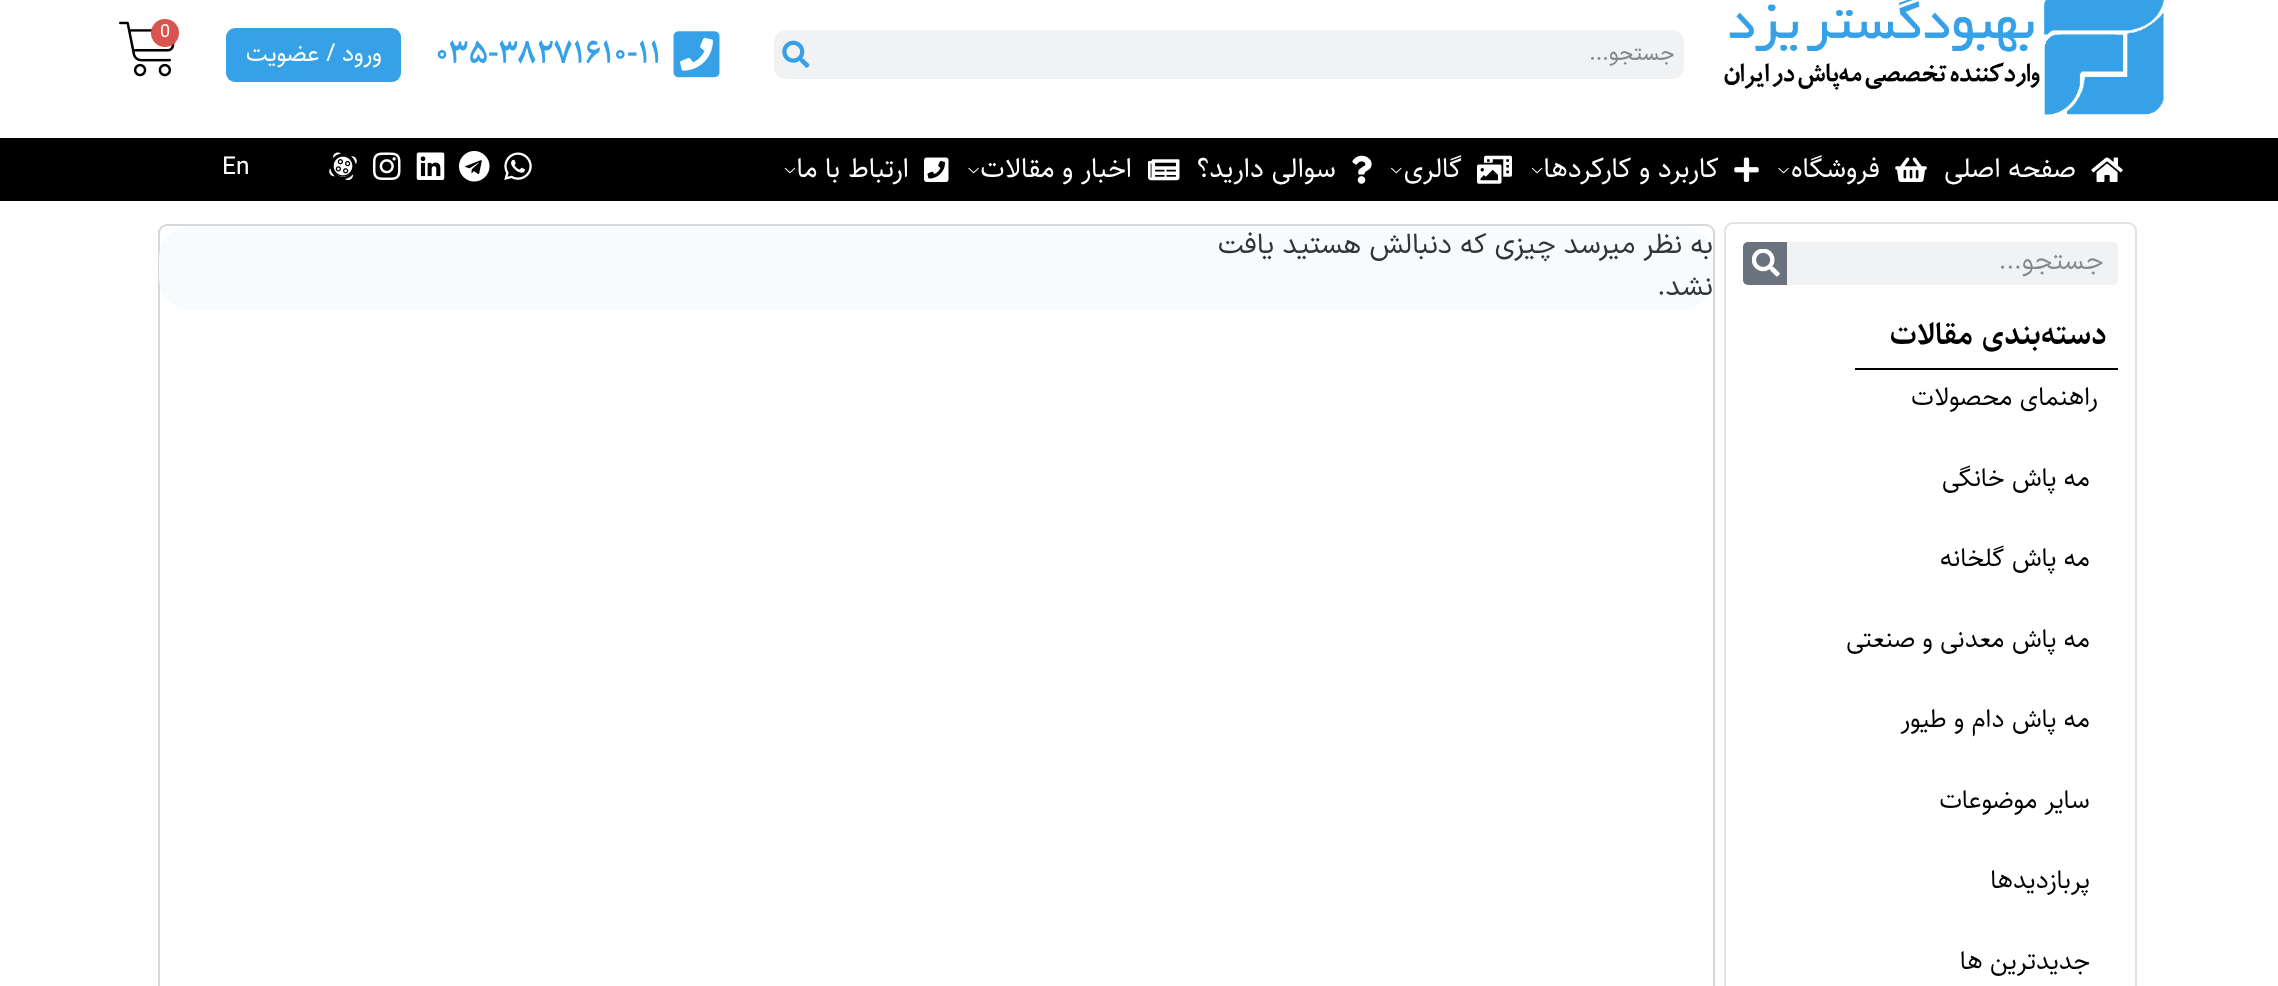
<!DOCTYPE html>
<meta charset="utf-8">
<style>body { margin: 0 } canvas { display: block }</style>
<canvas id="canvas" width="2278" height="986"></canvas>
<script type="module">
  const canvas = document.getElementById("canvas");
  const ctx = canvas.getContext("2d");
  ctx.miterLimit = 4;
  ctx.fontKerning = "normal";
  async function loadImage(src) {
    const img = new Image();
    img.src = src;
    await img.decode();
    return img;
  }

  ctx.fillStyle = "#ffffff";
  ctx.fillRect(0, 0, 2278, 986);
  ctx.drawImage(await loadImage("img1.png"), 1724, 0, 440, 115);
  ctx.drawImage(await loadImage("img2.png"), 119, 21, 56, 56);
  ctx.fillStyle = "#d9534f";
  ctx.beginPath();
  ctx.arc(165, 33, 14, 0, Math.PI * 2);
  ctx.fill();
  ctx.font = "18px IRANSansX";
  ctx.fillStyle = "#ffffff";
  ctx.fillText("0", 160, 37);
  ctx.fillStyle = "#f1f2f3";
  ctx.beginPath();
  ctx.roundRect(774, 30, 910, 49, 12);
  ctx.fill();
  ctx.direction = "rtl";
  ctx.font = "500 21px IRANSansX";
  ctx.fillStyle = "#868a8e";
  ctx.fillText("جستجو...", 1674, 60);
  ctx.drawImage(await loadImage("img3.png"), 782, 40, 28, 28);
  ctx.drawImage(await loadImage("img4.png"), 673, 31, 47, 47);
  ctx.direction = "ltr";
  ctx.font = "600 33.25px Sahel";
  ctx.fillStyle = "#36a1e6";
  ctx.fillText("۰۳۵-۳۸۲۷۱۶۱۰-۱۱", 436, 63);
  ctx.beginPath();
  ctx.roundRect(226, 28, 175, 54, 9);
  ctx.fill();
  ctx.direction = "rtl";
  ctx.font = "24.5px Sahel";
  ctx.fillStyle = "#ffffff";
  ctx.fillText("ورود / عضویت", 382, 61);
  ctx.fillStyle = "#000000";
  ctx.fillRect(0, 138, 2278, 63);
  ctx.drawImage(await loadImage("img5.png"), 2091, 157, 32, 25);
  ctx.font = "28px Sahel";
  ctx.fillStyle = "#ffffff";
  ctx.fillText("صفحه اصلی", 2076, 177);
  ctx.drawImage(await loadImage("img6.png"), 1895, 157, 32, 25);
  ctx.fillText("فروشگاه", 1880, 177);
  ctx.drawImage(await loadImage("img7.png"), 1778, 167, 11, 7);
  ctx.drawImage(await loadImage("img8.png"), 1734, 157, 25, 25);
  ctx.fillText("کاربرد و کارکردها", 1719, 177);
  ctx.drawImage(await loadImage("img9.png"), 1531, 167, 12, 7);
  ctx.drawImage(await loadImage("img10.png"), 1477, 155, 35, 29);
  ctx.fillText("گالری", 1462, 177);
  ctx.drawImage(await loadImage("img11.png"), 1391, 167, 11, 7);
  ctx.drawImage(await loadImage("img12.png"), 1352, 155, 20, 29);
  ctx.fillText("سوالی دارید؟", 1336, 177);
  ctx.drawImage(await loadImage("img13.png"), 1148, 159, 32, 22);
  ctx.fillText("اخبار و مقالات", 1132, 177);
  ctx.drawImage(await loadImage("img14.png"), 968, 167, 11, 7);
  ctx.drawImage(await loadImage("img15.png"), 924, 157, 25, 25);
  ctx.fillText("ارتباط با ما", 909, 177);
  ctx.drawImage(await loadImage("img16.png"), 784, 167, 12, 7);
  ctx.drawImage(await loadImage("img17.png"), 504, 152, 28, 28);
  ctx.drawImage(await loadImage("img18.png"), 459, 151, 31, 31);
  ctx.drawImage(await loadImage("img19.png"), 416, 152, 29, 28);
  ctx.drawImage(await loadImage("img20.png"), 372, 152, 29, 28);
  ctx.drawImage(await loadImage("img21.png"), 329, 152, 28, 28);
  ctx.direction = "ltr";
  ctx.font = "24.5px IRANSansX";
  ctx.fillText("En", 222, 174);
  ctx.beginPath();
  ctx.roundRect(1725, 223, 411, 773, 8);
  ctx.strokeStyle = "#e3e3e3";
  ctx.lineWidth = 2;
  ctx.stroke();
  ctx.fillStyle = "#f1f2f3";
  ctx.beginPath();
  ctx.roundRect(1743, 242, 375, 43, 5);
  ctx.fill();
  ctx.direction = "rtl";
  ctx.font = "26.25px IRANSansX";
  ctx.fillStyle = "#868a8e";
  ctx.fillText("جستجو...", 2103, 269);
  ctx.fillStyle = "#69727d";
  ctx.beginPath();
  ctx.roundRect(1743, 242, 44, 43, [5, 0, 0, 5]);
  ctx.fill();
  ctx.drawImage(await loadImage("img22.png"), 1752, 249, 28, 28);
  ctx.font = "600 31.5px Sahel";
  ctx.fillStyle = "#000000";
  ctx.fillText("دسته‌بندی مقالات", 2107, 344);
  ctx.fillRect(1855, 368, 263, 2);
  ctx.font = "26.25px Sahel";
  ctx.fillText("راهنمای محصولات", 2098, 405);
  ctx.fillText("مه پاش خانگی", 2090, 486);
  ctx.fillText("مه پاش گلخانه", 2090, 566);
  ctx.fillText("مه پاش معدنی و صنعتی", 2090, 647);
  ctx.fillText("مه پاش دام و طیور", 2090, 727);
  ctx.fillText("سایر موضوعات", 2090, 808);
  ctx.fillText("پربازدیدها", 2090, 888);
  ctx.fillText("جدیدترین ها", 2090, 969);
  ctx.beginPath();
  ctx.roundRect(159, 225, 1555, 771, 8);
  ctx.strokeStyle = "#d7d7d7";
  ctx.stroke();
  ctx.fillStyle = "#f7fbfd";
  ctx.beginPath();
  ctx.roundRect(159, 226, 1554, 84, 32);
  ctx.fill();
  ctx.font = "28px IRANSansX";
  ctx.fillStyle = "#333333";
  ctx.fillText("به نظر میرسد چیزی که دنبالش هستید یافت", 1713, 253);
  ctx.fillText("نشد.", 1713, 295);
</script>
